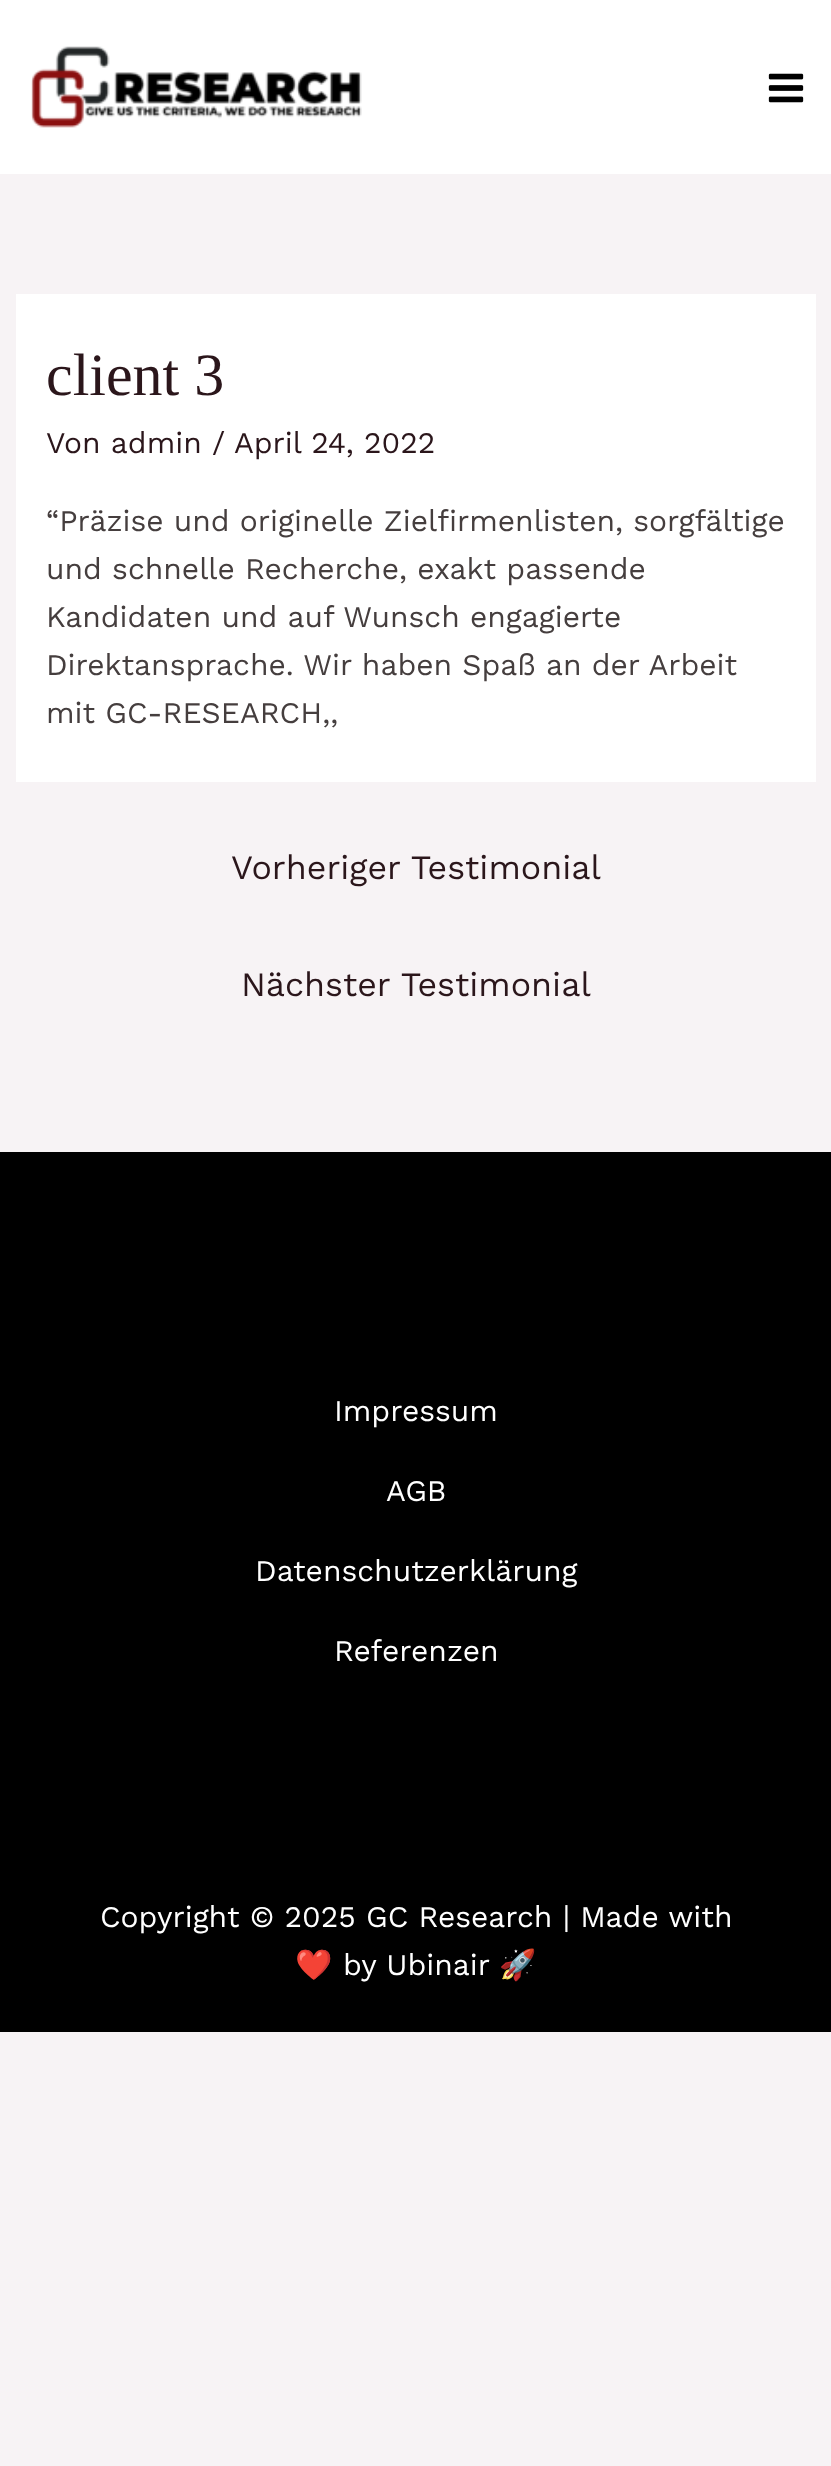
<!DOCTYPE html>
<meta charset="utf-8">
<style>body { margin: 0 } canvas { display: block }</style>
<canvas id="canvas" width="831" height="2466"></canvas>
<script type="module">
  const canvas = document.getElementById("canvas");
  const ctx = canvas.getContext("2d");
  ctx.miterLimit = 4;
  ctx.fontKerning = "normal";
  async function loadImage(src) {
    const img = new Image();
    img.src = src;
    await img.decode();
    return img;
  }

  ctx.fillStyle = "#f7f3f5";
  ctx.fillRect(0, 0, 831, 2466);
  ctx.fillStyle = "#ffffff";
  ctx.fillRect(0, 0, 831, 174);
  ctx.drawImage(await loadImage("img1.png"), 31, 46, 331, 82);
  ctx.drawImage(await loadImage("img2.png"), 768, 73, 36, 30);
  ctx.fillRect(16, 294, 800, 488);
  ctx.font = "60px Liberation Serif";
  ctx.fillStyle = "#2b161b";
  ctx.fillText("client 3", 46, 395);
  ctx.font = "30px Work Sans";
  ctx.fillText("Von admin /", 46, 453);
  ctx.fillText("April 24, 2022", 234, 453);
  ctx.fillStyle = "#453e3e";
  ctx.fillText("“Präzise und originelle Zielfirmenlisten, sorgfältige", 46, 531);
  ctx.fillText("und schnelle Recherche, exakt passende", 46, 579);
  ctx.fillText("Kandidaten und auf Wunsch engagierte", 46, 627);
  ctx.fillText("Direktansprache. Wir haben Spaß an der Arbeit", 46, 675);
  ctx.fillText("mit GC-RESEARCH,,", 46, 723);
  ctx.font = "34px Work Sans";
  ctx.fillStyle = "#2b161b";
  ctx.fillText("Vorheriger Testimonial", 231, 879);
  ctx.fillText("Nächster Testimonial", 241, 996);
  ctx.fillStyle = "#000000";
  ctx.fillRect(0, 1152, 831, 880);
  ctx.font = "30px Work Sans";
  ctx.fillStyle = "#ffffff";
  ctx.fillText("Impressum", 334, 1421);
  ctx.fillText("AGB", 386, 1501);
  ctx.fillText("Datenschutzerklärung", 255, 1581);
  ctx.fillText("Referenzen", 334, 1661);
  ctx.fillText("Copyright © 2025 GC Research | Made with", 100, 1927);
  ctx.font = "30px Noto Color Emoji";
  ctx.fillText("❤️", 295, 1975);
  ctx.font = "30px Work Sans";
  ctx.fillText("by Ubinair", 343, 1975);
  ctx.font = "30px Noto Color Emoji";
  ctx.fillText("🚀", 499, 1975);
</script>
